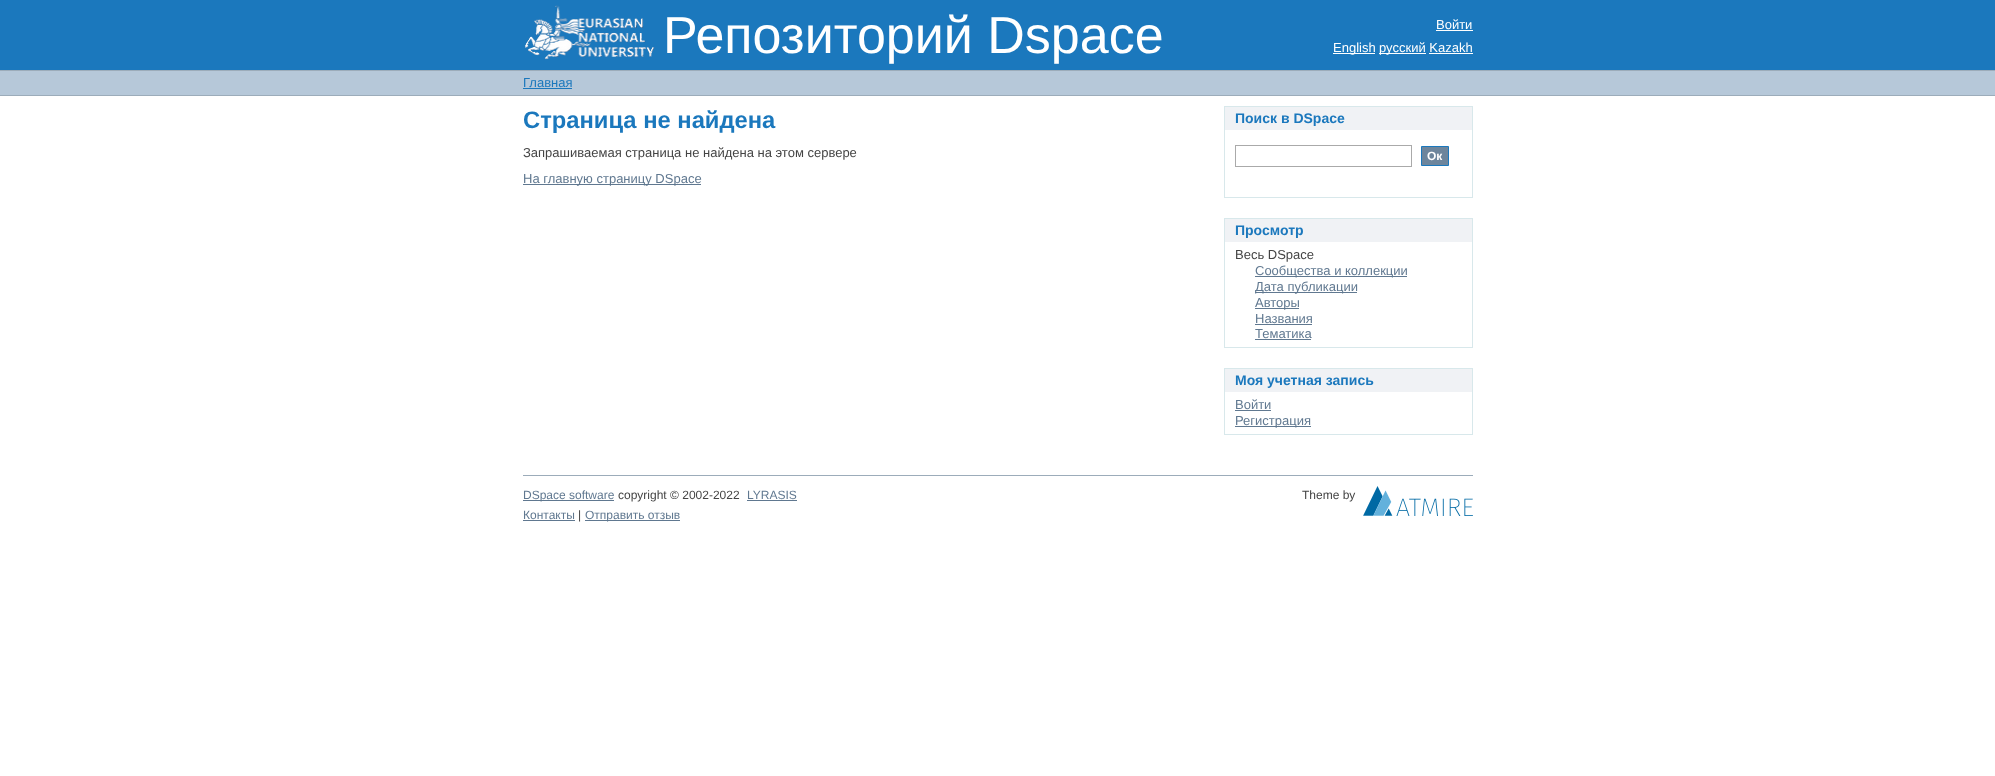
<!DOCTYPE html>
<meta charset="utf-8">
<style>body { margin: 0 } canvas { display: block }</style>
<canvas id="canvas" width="1995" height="776"></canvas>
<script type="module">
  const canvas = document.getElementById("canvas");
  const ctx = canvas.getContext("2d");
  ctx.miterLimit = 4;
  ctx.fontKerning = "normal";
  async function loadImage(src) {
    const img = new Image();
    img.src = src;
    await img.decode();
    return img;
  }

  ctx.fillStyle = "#ffffff";
  ctx.fillRect(0, 0, 1995, 776);
  ctx.fillStyle = "#1b78bd";
  ctx.fillRect(0, 0, 1995, 70);
  ctx.drawImage(await loadImage("img1.png"), 525, 5, 130, 55);
  ctx.font = "52px Liberation Sans";
  ctx.fillStyle = "#ffffff";
  ctx.fillText("Репозиторий Dspace", 663, 53);
  ctx.font = "13px Liberation Sans";
  ctx.fillText("Войти", 1436, 29);
  ctx.fillRect(1436, 30, 37, 1);
  ctx.fillRect(1333, 53, 42, 1);
  ctx.fillText("English", 1333, 52);
  ctx.fillRect(1379, 53, 47, 1);
  ctx.fillText("русский Kazakh", 1379, 52);
  ctx.fillRect(1429, 53, 44, 1);
  ctx.fillStyle = "#b6c8d9";
  ctx.fillRect(0, 71, 1995, 24);
  ctx.fillStyle = "#9cacba";
  ctx.fillRect(0, 70, 1995, 1);
  ctx.fillRect(0, 95, 1995, 1);
  ctx.fillStyle = "#1b78bd";
  ctx.fillText("Главная", 523, 87);
  ctx.fillRect(523, 88, 49, 1);
  ctx.font = "bold 23.75px Liberation Sans";
  ctx.fillText("Страница не найдена", 523, 128);
  ctx.font = "13px Liberation Sans";
  ctx.fillStyle = "#444444";
  ctx.fillText("Запрашиваемая страница не найдена на этом сервере", 523, 157);
  ctx.fillStyle = "#607890";
  ctx.fillRect(523, 184, 178, 1);
  ctx.fillText("На главную страницу DSpace", 523, 183);
  ctx.fillStyle = "#f0f2f5";
  ctx.fillRect(1225, 107, 247, 23);
  ctx.fillStyle = "#d8e8eb";
  ctx.fillRect(1224, 106, 249, 1);
  ctx.fillRect(1472, 106, 1, 92);
  ctx.fillRect(1224, 106, 1, 24);
  ctx.font = "bold 14px Liberation Sans";
  ctx.fillStyle = "#1b78bd";
  ctx.fillText("Поиск в DSpace", 1235, 123);
  ctx.fillStyle = "#d8e8eb";
  ctx.fillRect(1224, 197, 249, 1);
  ctx.fillRect(1224, 130, 1, 68);
  ctx.strokeStyle = "#aaaaaa";
  ctx.strokeRect(1235.5, 145.5, 176, 21);
  ctx.fillStyle = "#6d859c";
  ctx.beginPath();
  ctx.rect(1421.5, 146.5, 27, 19);
  ctx.fill();
  ctx.strokeStyle = "#1b78bd";
  ctx.stroke();
  ctx.font = "bold 12px Liberation Sans";
  ctx.fillStyle = "#ffffff";
  ctx.fillText("Ок", 1427, 160);
  ctx.fillStyle = "#f0f2f5";
  ctx.fillRect(1225, 219, 247, 23);
  ctx.fillStyle = "#d8e8eb";
  ctx.fillRect(1224, 218, 249, 1);
  ctx.fillRect(1472, 218, 1, 130);
  ctx.fillRect(1224, 218, 1, 24);
  ctx.font = "bold 14px Liberation Sans";
  ctx.fillStyle = "#1b78bd";
  ctx.fillText("Просмотр", 1235, 235);
  ctx.fillStyle = "#d8e8eb";
  ctx.fillRect(1224, 347, 249, 1);
  ctx.fillRect(1224, 242, 1, 106);
  ctx.font = "13px Liberation Sans";
  ctx.fillStyle = "#444444";
  ctx.fillText("Весь DSpace", 1235, 259);
  ctx.fillStyle = "#607890";
  ctx.fillRect(1255, 276, 152, 1);
  ctx.fillText("Сообщества и коллекции", 1255, 275);
  ctx.fillRect(1255, 292, 102, 1);
  ctx.fillText("Дата публикации", 1255, 291);
  ctx.fillRect(1255, 308, 44, 1);
  ctx.fillText("Авторы", 1255, 307);
  ctx.fillText("Названия", 1255, 323);
  ctx.fillRect(1255, 324, 57, 1);
  ctx.fillText("Тематика", 1255, 338);
  ctx.fillRect(1255, 339, 56, 1);
  ctx.fillStyle = "#f0f2f5";
  ctx.fillRect(1225, 369, 247, 23);
  ctx.fillStyle = "#d8e8eb";
  ctx.fillRect(1224, 368, 249, 1);
  ctx.fillRect(1472, 368, 1, 67);
  ctx.fillRect(1224, 368, 1, 24);
  ctx.font = "bold 14px Liberation Sans";
  ctx.fillStyle = "#1b78bd";
  ctx.fillText("Моя учетная запись", 1235, 385);
  ctx.fillStyle = "#d8e8eb";
  ctx.fillRect(1224, 434, 249, 1);
  ctx.fillRect(1224, 392, 1, 43);
  ctx.font = "13px Liberation Sans";
  ctx.fillStyle = "#607890";
  ctx.fillText("Войти", 1235, 409);
  ctx.fillRect(1235, 410, 36, 1);
  ctx.fillRect(1235, 426, 76, 1);
  ctx.fillText("Регистрация", 1235, 425);
  ctx.fillStyle = "#9cacba";
  ctx.fillRect(523, 475, 950, 1);
  ctx.fillStyle = "#607890";
  ctx.fillRect(523, 500, 91, 1);
  ctx.font = "12px Liberation Sans";
  ctx.fillText("DSpace software", 523, 499);
  ctx.fillStyle = "#444444";
  ctx.fillText("copyright © 2002-2022", 618, 499);
  ctx.fillStyle = "#607890";
  ctx.fillText("LYRASIS", 747, 499);
  ctx.fillRect(747, 500, 50, 1);
  ctx.fillStyle = "#444444";
  ctx.fillText("Theme by", 1302, 499);
  ctx.drawImage(await loadImage("img2.png"), 1363, 486, 110, 30);
  ctx.fillStyle = "#607890";
  ctx.fillText("Контакты", 523, 519);
  ctx.fillRect(523, 520, 52, 1);
  ctx.fillStyle = "#444444";
  ctx.fillText("|", 578, 519);
  ctx.fillStyle = "#607890";
  ctx.fillRect(585, 520, 95, 1);
  ctx.fillText("Отправить отзыв", 585, 519);
</script>
